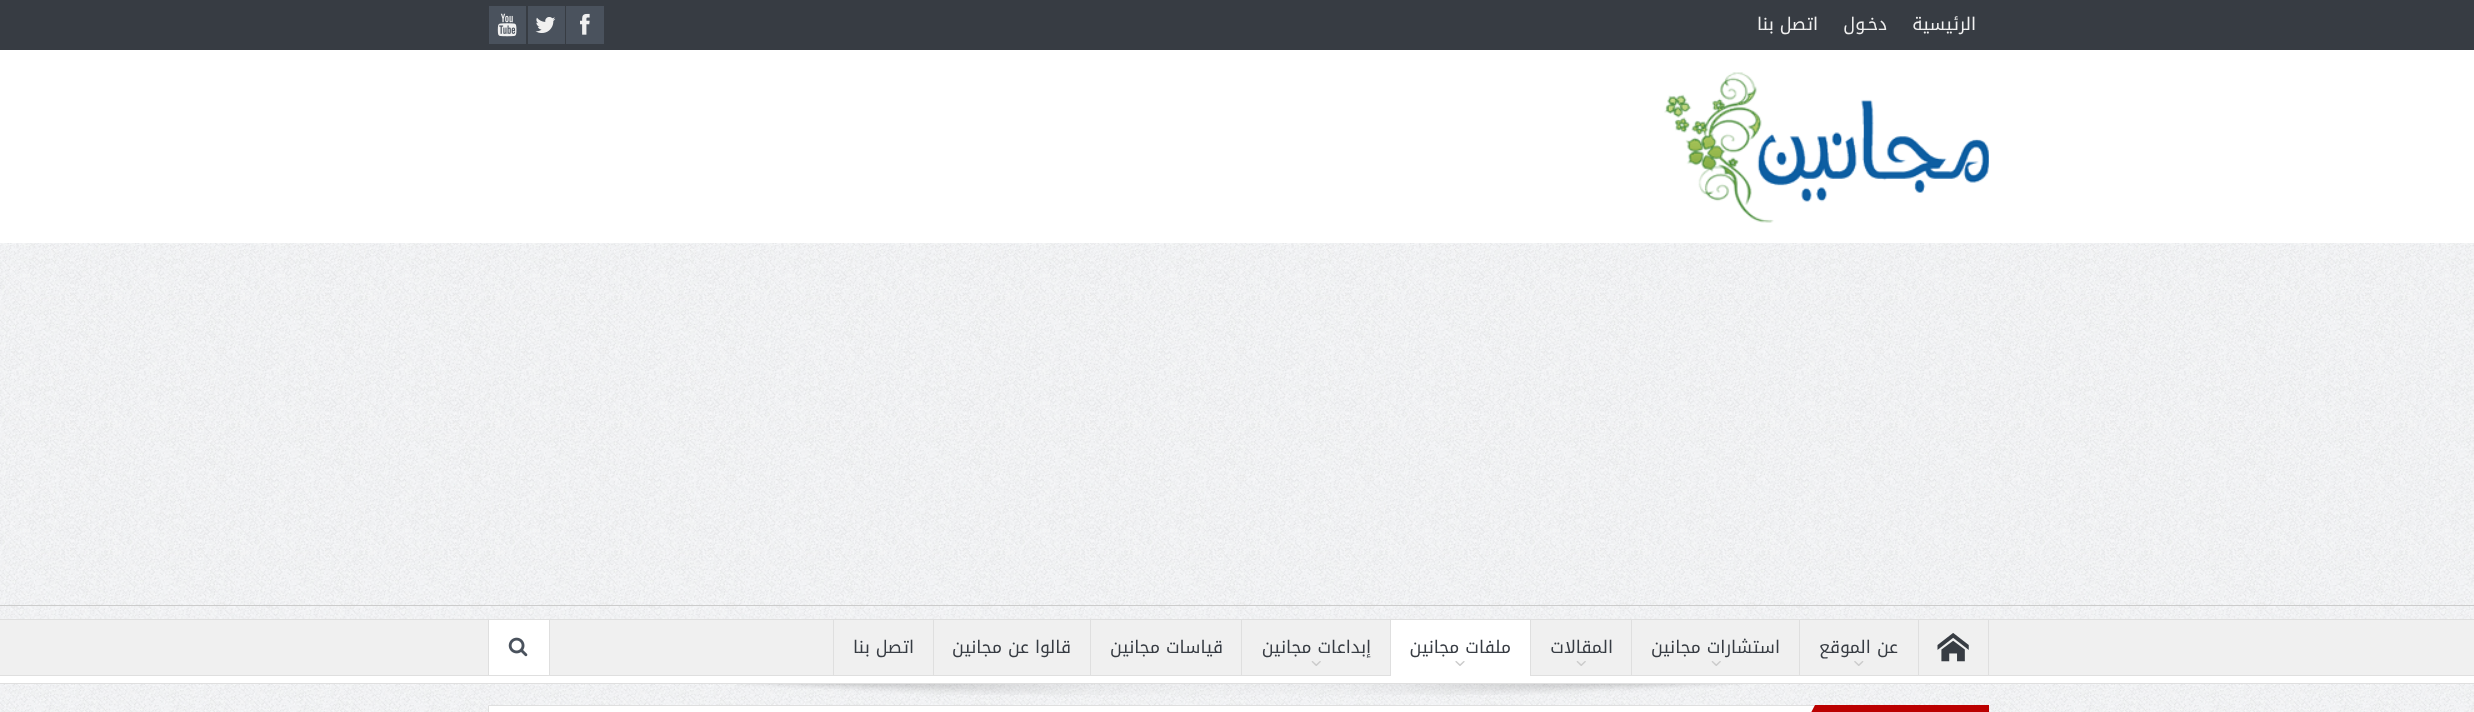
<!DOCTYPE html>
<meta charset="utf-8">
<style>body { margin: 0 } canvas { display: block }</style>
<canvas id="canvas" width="2474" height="712"></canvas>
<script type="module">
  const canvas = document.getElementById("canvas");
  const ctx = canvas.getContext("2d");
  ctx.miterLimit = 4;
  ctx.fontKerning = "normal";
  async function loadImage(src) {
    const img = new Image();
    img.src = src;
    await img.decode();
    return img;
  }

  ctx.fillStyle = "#ffffff";
  ctx.fillRect(0, 0, 2474, 712);
  ctx.drawImage(await loadImage("img1.png"), 0, 243, 2474, 469);
  ctx.fillStyle = "#373c43";
  ctx.fillRect(0, 0, 2474, 50);
  ctx.direction = "rtl";
  ctx.font = "17.5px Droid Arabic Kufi";
  ctx.fillStyle = "#f0f0f0";
  ctx.fillText("الرئيسية", 1976, 30);
  ctx.fillText("دخـول", 1887, 30);
  ctx.fillText("اتصل بنا", 1818, 30);
  ctx.fillStyle = "#4a525d";
  ctx.fillRect(566, 6, 38, 38);
  ctx.drawImage(await loadImage("img2.png"), 580, 13, 10, 22);
  ctx.fillRect(528, 6, 37, 38);
  ctx.drawImage(await loadImage("img3.png"), 535, 17, 21, 16);
  ctx.fillRect(489, 6, 37, 38);
  ctx.drawImage(await loadImage("img4.png"), 497, 13, 20, 24);
  ctx.drawImage(await loadImage("img5.png"), 1664, 72, 325, 151);
  ctx.fillStyle = "#cccccc";
  ctx.fillRect(0, 605, 2474, 1);
  ctx.fillStyle = "#ffffff";
  ctx.fillRect(0, 676, 2474, 7);
  ctx.fillStyle = "#dfdfdf";
  ctx.fillRect(0, 619, 2474, 1);
  ctx.fillRect(0, 683, 2474, 1);
  ctx.fillStyle = "#f0f0f0";
  ctx.fillRect(0, 620, 2474, 55);
  ctx.fillStyle = "#dfdfdf";
  ctx.fillRect(0, 675, 2474, 1);
  ctx.fillRect(1988, 620, 1, 55);
  ctx.fillRect(1918, 620, 1, 55);
  ctx.drawImage(await loadImage("img6.png"), 1937, 633, 32, 29);
  ctx.fillRect(1799, 620, 1, 55);
  ctx.fillStyle = "#373c43";
  ctx.fillText("عن الموقع", 1898, 653);
  ctx.drawImage(await loadImage("img7.png"), 1854, 661, 10, 5);
  ctx.fillStyle = "#dfdfdf";
  ctx.fillRect(1631, 620, 1, 55);
  ctx.fillStyle = "#373c43";
  ctx.fillText("استشارات مجانين", 1780, 653);
  ctx.drawImage(await loadImage("img8.png"), 1711, 661, 10, 5);
  ctx.fillStyle = "#dfdfdf";
  ctx.fillRect(1530, 620, 1, 55);
  ctx.fillStyle = "#373c43";
  ctx.fillText("المقالات", 1613, 653);
  ctx.drawImage(await loadImage("img8.png"), 1576, 661, 10, 5);
  ctx.fillStyle = "#dfdfdf";
  ctx.fillRect(1390, 620, 1, 55);
  ctx.fillStyle = "#ffffff";
  ctx.fillRect(1391, 620, 139, 56);
  ctx.fillStyle = "#373c43";
  ctx.fillText("ملفات مجانين", 1511, 653);
  ctx.drawImage(await loadImage("img9.png"), 1455, 661, 10, 5);
  ctx.fillStyle = "#dfdfdf";
  ctx.fillRect(1241, 620, 1, 55);
  ctx.fillStyle = "#373c43";
  ctx.fillText("إبداعات مجانين", 1371, 653);
  ctx.drawImage(await loadImage("img8.png"), 1311, 661, 10, 5);
  ctx.fillStyle = "#dfdfdf";
  ctx.fillRect(1090, 620, 1, 55);
  ctx.fillStyle = "#373c43";
  ctx.fillText("قياسات مجانين", 1223, 653);
  ctx.fillStyle = "#dfdfdf";
  ctx.fillRect(933, 620, 1, 55);
  ctx.fillStyle = "#373c43";
  ctx.fillText("قالوا عن مجانين", 1071, 653);
  ctx.fillStyle = "#dfdfdf";
  ctx.fillRect(833, 620, 1, 55);
  ctx.fillStyle = "#373c43";
  ctx.fillText("اتصل بنا", 914, 653);
  ctx.fillStyle = "#ffffff";
  ctx.fillRect(489, 620, 60, 55);
  ctx.fillStyle = "#dfdfdf";
  ctx.fillRect(549, 620, 1, 55);
  ctx.fillRect(488, 620, 1, 55);
  ctx.drawImage(await loadImage("img10.png"), 508, 637, 20, 20);
  ctx.drawImage(await loadImage("img11.png"), 737, 684, 1005, 11);
  ctx.fillStyle = "#bb0000";
  ctx.fillRect(1815, 705, 174, 7);
  ctx.fillStyle = "#ffffff";
  ctx.beginPath();
  ctx.rect(488.5, 705.5, 1326, 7);
  ctx.fill();
  ctx.strokeStyle = "#dfdfdf";
  ctx.stroke();
  ctx.fillStyle = "#bb0000";
  ctx.beginPath();
  ctx.moveTo(1815, 705);
  ctx.lineTo(1815, 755);
  ctx.lineTo(1802, 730);
  ctx.closePath();
  ctx.fill();
</script>
